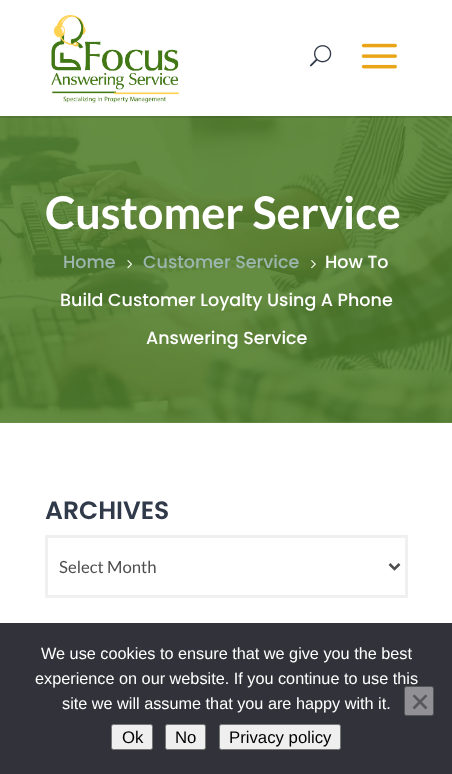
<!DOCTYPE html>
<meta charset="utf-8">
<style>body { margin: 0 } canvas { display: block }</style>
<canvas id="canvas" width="452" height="774"></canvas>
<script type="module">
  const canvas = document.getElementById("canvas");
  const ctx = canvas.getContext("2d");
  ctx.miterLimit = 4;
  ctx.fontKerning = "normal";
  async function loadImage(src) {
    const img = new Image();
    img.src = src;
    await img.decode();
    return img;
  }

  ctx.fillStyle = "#6b9549";
  ctx.fillRect(0, 0, 452, 774);
  ctx.drawImage(await loadImage("img4.png"), 0, 116, 452, 307);
  ctx.fillStyle = "rgba(0, 0, 0, 0.1)";
  ctx.beginPath();
  ctx.moveTo(0, 116);
  ctx.lineTo(0, 118);
  ctx.lineTo(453, 118);
  ctx.lineTo(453, 1);
  ctx.lineTo(452, 1);
  ctx.lineTo(452, 116);
  ctx.closePath();
  ctx.fill();
  ctx.fillStyle = "#ffffff";
  ctx.fillRect(0, 0, 452, 116);
  ctx.drawImage(await loadImage("img1.png"), 51, 15, 128, 88);
  ctx.drawImage(await loadImage("img2.png"), 310, 45, 22, 22);
  ctx.drawImage(await loadImage("img3.png"), 361, 43, 36, 26);
  ctx.font = "bold 45px Lato";
  ctx.fillText("Customer Service", 45, 229);
  ctx.font = "500 17.5px Poppins";
  ctx.fillStyle = "#9db7b0";
  ctx.fillText("Home", 63, 268);
  ctx.drawImage(await loadImage("img5.png"), 127, 260, 5, 9);
  ctx.fillText("Customer Service", 143, 268);
  ctx.drawImage(await loadImage("img6.png"), 311, 260, 5, 9);
  ctx.fillStyle = "#ffffff";
  ctx.fillText("How To", 325, 268);
  ctx.fillText("Build Customer Loyalty Using A Phone", 60, 306);
  ctx.fillText("Answering Service", 146, 344);
  ctx.fillRect(0, 423, 452, 200);
  ctx.font = "600 25px Poppins";
  ctx.fillStyle = "#313a4a";
  ctx.fillText("ARCHIVES", 45, 519);
  ctx.strokeStyle = "#f0f0f0";
  ctx.lineWidth = 3;
  ctx.strokeRect(46.5, 536.5, 360, 60);
  ctx.beginPath();
  ctx.moveTo(389.5, 564);
  ctx.lineTo(394.5, 569);
  ctx.lineTo(399.5, 564);
  ctx.strokeStyle = "#4e4e4e";
  ctx.lineWidth = 2.5;
  ctx.stroke();
  ctx.font = "16.75px Lato";
  ctx.fillStyle = "#4e4e4e";
  ctx.fillText("Select Month", 59, 573);
  ctx.fillStyle = "#32323a";
  ctx.fillRect(0, 623, 452, 151);
  ctx.font = "16.25px Liberation Sans";
  ctx.fillStyle = "#ffffff";
  ctx.fillText("We use cookies to ensure that we give you the best", 41, 659);
  ctx.fillText("experience on our website. If you continue to use this", 35, 684);
  ctx.fillText("site we will assume that you are happy with it.", 62, 709);
  ctx.fillStyle = "#919195";
  ctx.beginPath();
  ctx.roundRect(404.5, 686.5, 29, 29, 2);
  ctx.fill();
  ctx.strokeStyle = "#545458";
  ctx.lineWidth = 1;
  ctx.stroke();
  ctx.fillStyle = "#59595d";
  ctx.beginPath();
  ctx.moveTo(425.5, 694.5);
  ctx.lineTo(427.5, 696);
  ctx.lineTo(414.5, 709.5);
  ctx.lineTo(412.5, 707.5);
  ctx.closePath();
  ctx.fill();
  ctx.beginPath();
  ctx.moveTo(412.5, 696);
  ctx.lineTo(414.5, 694.5);
  ctx.lineTo(427.5, 707.5);
  ctx.lineTo(425.5, 709.5);
  ctx.closePath();
  ctx.fill();
  ctx.fillStyle = "#efefef";
  ctx.beginPath();
  ctx.roundRect(111.5, 724.5, 41, 25, 2);
  ctx.fill();
  ctx.strokeStyle = "#767676";
  ctx.stroke();
  ctx.font = "16.75px Liberation Sans";
  ctx.fillStyle = "#000000";
  ctx.fillText("Ok", 122, 743);
  ctx.fillStyle = "#efefef";
  ctx.beginPath();
  ctx.roundRect(165.5, 724.5, 40, 25, 2);
  ctx.fill();
  ctx.stroke();
  ctx.fillStyle = "#000000";
  ctx.fillText("No", 175, 743);
  ctx.fillStyle = "#efefef";
  ctx.beginPath();
  ctx.roundRect(219.5, 724.5, 121, 25, 2);
  ctx.fill();
  ctx.stroke();
  ctx.fillStyle = "#000000";
  ctx.fillText("Privacy policy", 229, 743);
</script>
